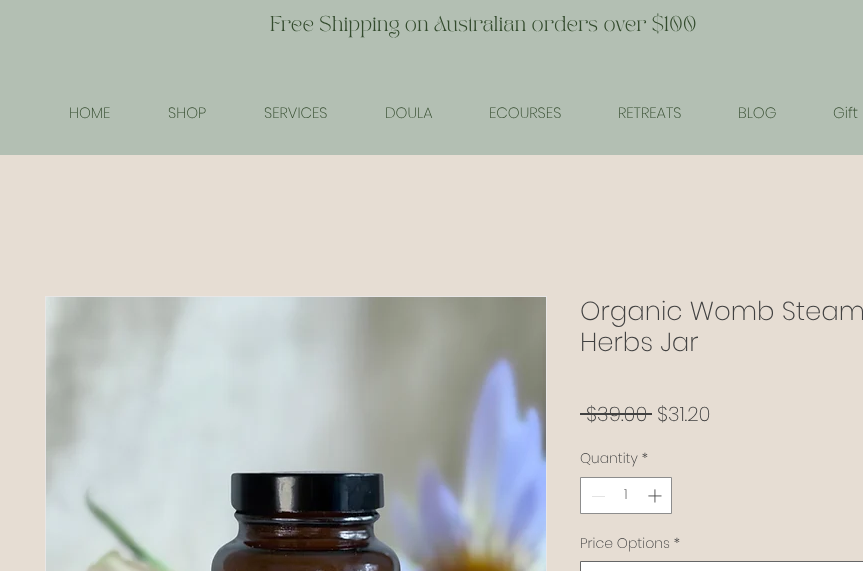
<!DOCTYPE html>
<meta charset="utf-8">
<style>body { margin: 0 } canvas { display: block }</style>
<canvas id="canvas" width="863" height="571"></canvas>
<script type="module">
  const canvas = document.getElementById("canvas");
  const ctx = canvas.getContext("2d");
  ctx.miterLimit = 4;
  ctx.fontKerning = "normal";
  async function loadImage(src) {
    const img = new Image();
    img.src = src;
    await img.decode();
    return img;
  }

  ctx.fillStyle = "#e6ddd3";
  ctx.fillRect(0, 0, 863, 571);
  ctx.fillStyle = "#b3bfb3";
  ctx.fillRect(0, 0, 863, 155);
  ctx.font = "15px 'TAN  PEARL'";
  ctx.fillStyle = "#334b2d";
  ctx.fillText("Free Shipping on Australian orders over $100", 270, 31);
  ctx.font = "200 15px Poppins";
  ctx.fillText("HOME", 69, 118);
  ctx.fillText("SHOP", 168, 118);
  ctx.fillText("SERVICES", 264, 118);
  ctx.fillText("DOULA", 385, 118);
  ctx.fillText("ECOURSES", 489, 118);
  ctx.fillText("RETREATS", 618, 118);
  ctx.fillText("BLOG", 738, 118);
  ctx.fillText("Gift", 833, 118);
  ctx.strokeStyle = "#e8e6e6";
  ctx.strokeRect(45.5, 296.5, 501, 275);
  ctx.drawImage(await loadImage("img1.png"), 46, 297, 500, 274);
  ctx.font = "200 26px Poppins";
  ctx.fillStyle = "#414141";
  ctx.fillText("Organic Womb Steam", 580, 320);
  ctx.fillText("Herbs Jar", 580, 351);
  ctx.font = "200 20px Poppins";
  ctx.fillText("$39.00", 586, 421);
  ctx.fillRect(580, 413, 72, 2);
  ctx.fillText("$31.20", 657, 421);
  ctx.font = "200 14px Poppins";
  ctx.fillText("Quantity *", 580, 463);
  ctx.fillStyle = "#ffffff";
  ctx.beginPath();
  ctx.rect(580.5, 477.5, 91, 36);
  ctx.fill();
  ctx.strokeStyle = "#8d8d8d";
  ctx.stroke();
  ctx.fillStyle = "#e3e3e3";
  ctx.fillRect(592, 496, 13, 1);
  ctx.fillStyle = "#414141";
  ctx.fillText("1", 624, 499);
  ctx.drawImage(await loadImage("img2.png"), 648, 489, 14, 14);
  ctx.fillText("Price Options *", 580, 548);
  ctx.fillStyle = "#ffffff";
  ctx.beginPath();
  ctx.rect(580.5, 561.5, 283, 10);
  ctx.fill();
  ctx.strokeStyle = "#666666";
  ctx.stroke();
</script>
